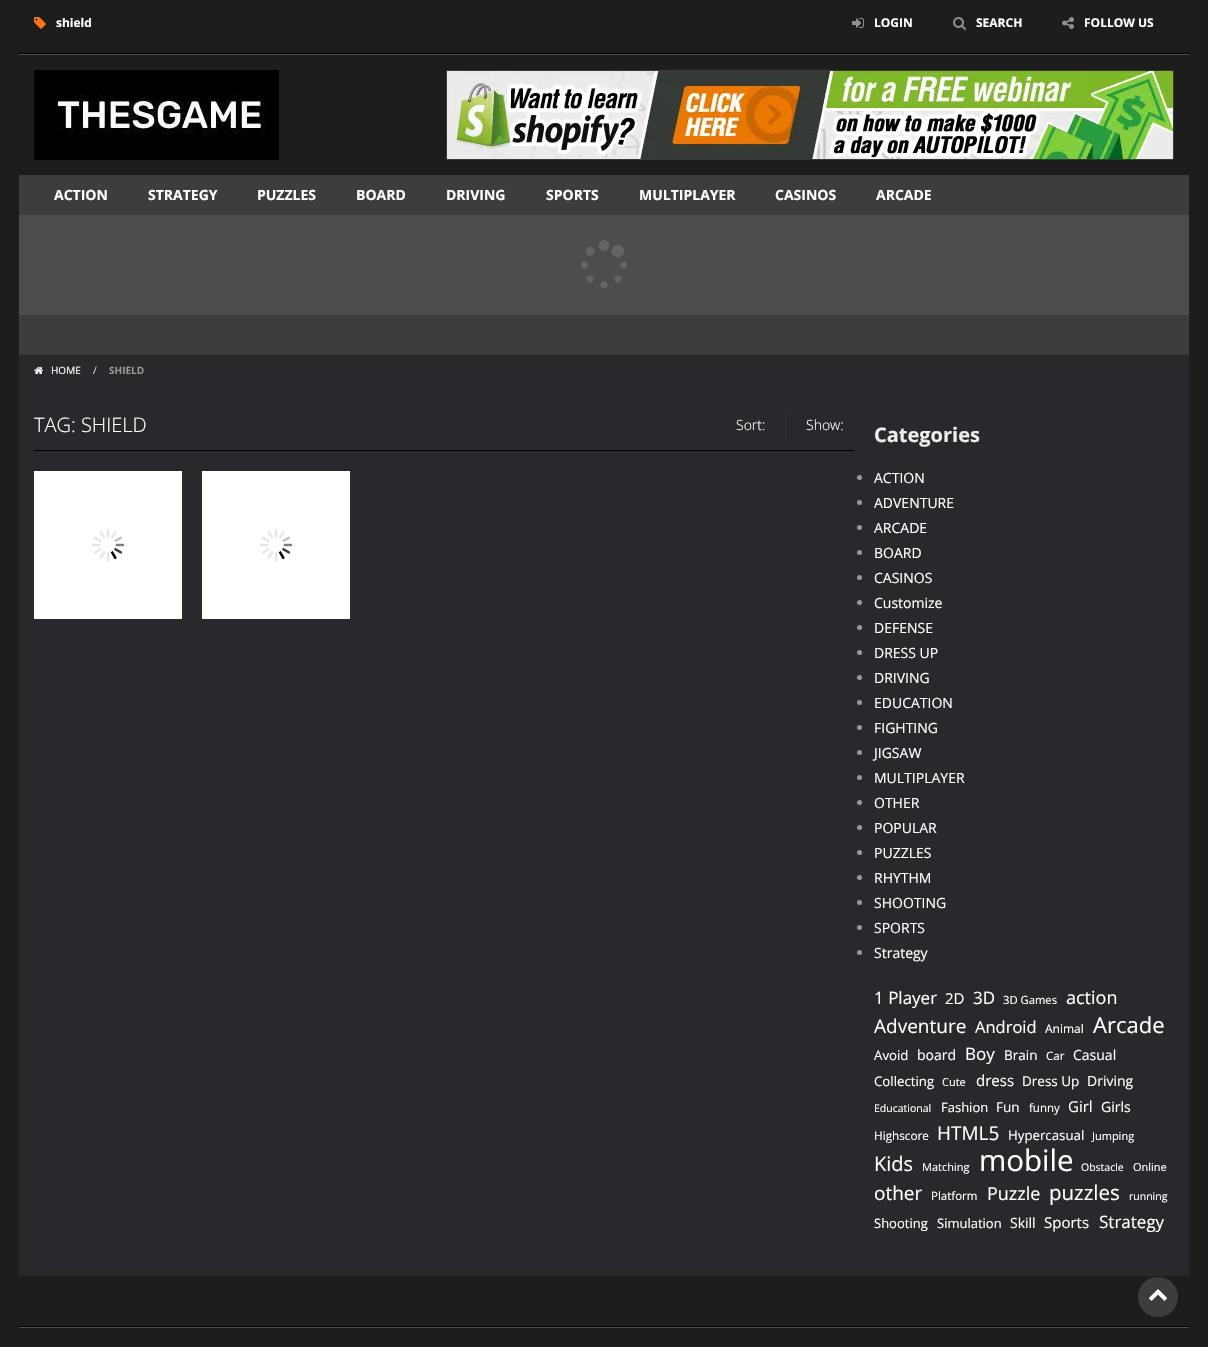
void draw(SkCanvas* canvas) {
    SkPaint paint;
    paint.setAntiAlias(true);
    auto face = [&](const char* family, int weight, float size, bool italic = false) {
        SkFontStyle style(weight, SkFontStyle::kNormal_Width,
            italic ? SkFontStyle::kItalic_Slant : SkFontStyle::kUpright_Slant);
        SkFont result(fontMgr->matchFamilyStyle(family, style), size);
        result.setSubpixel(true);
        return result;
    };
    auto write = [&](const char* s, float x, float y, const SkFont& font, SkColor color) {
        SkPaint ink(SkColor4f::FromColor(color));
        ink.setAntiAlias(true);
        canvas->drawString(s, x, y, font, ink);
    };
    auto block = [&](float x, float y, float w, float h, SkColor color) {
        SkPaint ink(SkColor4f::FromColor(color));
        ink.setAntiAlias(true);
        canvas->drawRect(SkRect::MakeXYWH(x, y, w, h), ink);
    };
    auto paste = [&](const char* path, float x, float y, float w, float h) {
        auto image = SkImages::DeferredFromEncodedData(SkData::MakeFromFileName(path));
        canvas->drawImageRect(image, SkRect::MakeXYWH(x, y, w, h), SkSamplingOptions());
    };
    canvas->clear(SkColorSetRGB(29, 29, 29));
    block(19, 53, 1170, 1, SK_ColorBLACK);
    paste("pic1.png", 34, 17, 12, 12);
    auto kFont1 = face("Open Sans", 700, 12);
    write("shield", 56, 27, kFont1, SK_ColorWHITE);
    paste("pic2.png", 852, 18, 12, 10);
    write("LOGIN", 874, 27, kFont1, SK_ColorWHITE);
    paste("pic3.png", 953, 17, 13, 13);
    write("SEARCH", 976, 27, kFont1, SK_ColorWHITE);
    paste("pic4.png", 1062, 17, 12, 12);
    write("FOLLOW US", 1084, 27, kFont1, SK_ColorWHITE);
    block(19, 54, 1170, 1, SkColorSetRGB(77, 77, 77));
    paste("pic5.png", 34, 70, 245, 90);
    paste("pic6.png", 446, 70, 728, 90);
    block(19, 175, 1170, 40, SkColorSetRGB(61, 61, 61));
    auto kFont2 = face("Open Sans", 700, 14);
    write("ACTION", 54, 200, kFont2, SK_ColorWHITE);
    write("STRATEGY", 148, 200, kFont2, SK_ColorWHITE);
    write("PUZZLES", 257, 200, kFont2, SK_ColorWHITE);
    write("BOARD", 356, 200, kFont2, SK_ColorWHITE);
    write("DRIVING", 446, 200, kFont2, SK_ColorWHITE);
    write("SPORTS", 546, 200, kFont2, SK_ColorWHITE);
    write("MULTIPLAYER", 639, 200, kFont2, SK_ColorWHITE);
    write("CASINOS", 775, 200, kFont2, SK_ColorWHITE);
    write("ARCADE", 876, 200, kFont2, SK_ColorWHITE);
    block(19, 215, 1170, 100, SkColorSetRGB(77, 77, 77));
    paste("pic7.png", 581, 240, 46, 49);
    block(19, 315, 1170, 40, SkColorSetRGB(61, 61, 61));
    block(19, 355, 1170, 921, SkColorSetRGB(41, 41, 45));
    paste("pic8.png", 34, 366, 10, 8);
    auto kFont3 = face("Open Sans", 400, 10);
    write("HOME", 51, 374, kFont3, SK_ColorWHITE);
    write("/", 93, 374, kFont3, SkColorSetRGB(221, 221, 221));
    auto kFont4 = face("Open Sans", 700, 10);
    write("SHIELD", 109, 374, kFont4, SkColorSetRGB(153, 153, 153));
    block(34, 450, 820, 1, SK_ColorBLACK);
    auto kFont5 = face("Open Sans", 300, 20);
    write("TAG: SHIELD", 34, 432, kFont5, SK_ColorWHITE);
    block(785, 410, 1, 30, SkColorSetRGB(51, 51, 51));
    auto kFont6 = face("Open Sans", 300, 14);
    write("Sort:", 736, 430, kFont6, SK_ColorWHITE);
    write("Show:", 806, 430, kFont6, SK_ColorWHITE);
    block(34, 471, 148, 148, SK_ColorWHITE);
    paste("pic9.png", 92, 529, 32, 32);
    block(202, 471, 148, 148, SK_ColorWHITE);
    paste("pic9.png", 260, 529, 32, 32);
    auto kFont7 = face("Open Sans", 700, 20);
    write("Categories", 874, 442, kFont7, SkColorSetRGB(238, 238, 238));
    paint.setColor(SkColorSetRGB(153, 153, 153));
    canvas->drawCircle(859.5f, 477.5f, 2.5f, paint);
    auto kFont8 = face("Open Sans", 400, 14);
    write("ACTION", 874, 483, kFont8, SK_ColorWHITE);
    canvas->drawCircle(859.5f, 502.5f, 2.5f, paint);
    write("ADVENTURE", 874, 508, kFont8, SK_ColorWHITE);
    canvas->drawCircle(859.5f, 527.5f, 2.5f, paint);
    write("ARCADE", 874, 533, kFont8, SK_ColorWHITE);
    canvas->drawCircle(859.5f, 552.5f, 2.5f, paint);
    write("BOARD", 874, 558, kFont8, SK_ColorWHITE);
    canvas->drawCircle(859.5f, 577.5f, 2.5f, paint);
    write("CASINOS", 874, 583, kFont8, SK_ColorWHITE);
    canvas->drawCircle(859.5f, 602.5f, 2.5f, paint);
    write("Customize", 874, 608, kFont8, SK_ColorWHITE);
    canvas->drawCircle(859.5f, 627.5f, 2.5f, paint);
    write("DEFENSE", 874, 633, kFont8, SK_ColorWHITE);
    canvas->drawCircle(859.5f, 652.5f, 2.5f, paint);
    write("DRESS UP", 874, 658, kFont8, SK_ColorWHITE);
    canvas->drawCircle(859.5f, 677.5f, 2.5f, paint);
    write("DRIVING", 874, 683, kFont8, SK_ColorWHITE);
    canvas->drawCircle(859.5f, 702.5f, 2.5f, paint);
    write("EDUCATION", 874, 708, kFont8, SK_ColorWHITE);
    canvas->drawCircle(859.5f, 727.5f, 2.5f, paint);
    write("FIGHTING", 874, 733, kFont8, SK_ColorWHITE);
    canvas->drawCircle(859.5f, 752.5f, 2.5f, paint);
    write("JIGSAW", 874, 758, kFont8, SK_ColorWHITE);
    canvas->drawCircle(859.5f, 777.5f, 2.5f, paint);
    write("MULTIPLAYER", 874, 783, kFont8, SK_ColorWHITE);
    canvas->drawCircle(859.5f, 802.5f, 2.5f, paint);
    write("OTHER", 874, 808, kFont8, SK_ColorWHITE);
    canvas->drawCircle(859.5f, 827.5f, 2.5f, paint);
    write("POPULAR", 874, 833, kFont8, SK_ColorWHITE);
    canvas->drawCircle(859.5f, 852.5f, 2.5f, paint);
    write("PUZZLES", 874, 858, kFont8, SK_ColorWHITE);
    canvas->drawCircle(859.5f, 877.5f, 2.5f, paint);
    write("RHYTHM", 874, 883, kFont8, SK_ColorWHITE);
    canvas->drawCircle(859.5f, 902.5f, 2.5f, paint);
    write("SHOOTING", 874, 908, kFont8, SK_ColorWHITE);
    canvas->drawCircle(859.5f, 927.5f, 2.5f, paint);
    write("SPORTS", 874, 933, kFont8, SK_ColorWHITE);
    canvas->drawCircle(859.5f, 952.5f, 2.5f, paint);
    write("Strategy", 874, 958, kFont8, SK_ColorWHITE);
    auto kFont9 = face("Open Sans", 400, 17);
    write("1 Player", 874, 1004, kFont9, SK_ColorWHITE);
    auto kFont10 = face("Open Sans", 400, 15);
    write("2D", 945, 1004, kFont10, SK_ColorWHITE);
    write("3D", 973, 1004, kFont9, SK_ColorWHITE);
    auto kFont11 = face("Open Sans", 400, 11.25f);
    write("3D Games", 1003, 1004, kFont11, SK_ColorWHITE);
    auto kFont12 = face("Open Sans", 400, 18);
    write("action", 1066, 1004, kFont12, SK_ColorWHITE);
    auto kFont13 = face("Open Sans", 400, 19);
    write("Adventure", 874, 1033, kFont13, SK_ColorWHITE);
    auto kFont14 = face("Open Sans", 400, 16.5f);
    write("Android", 975, 1033, kFont14, SK_ColorWHITE);
    auto kFont15 = face("Open Sans", 400, 12);
    write("Animal", 1045, 1033, kFont15, SK_ColorWHITE);
    auto kFont16 = face("Open Sans", 400, 22);
    write("Arcade", 1093, 1033, kFont16, SK_ColorWHITE);
    auto kFont17 = face("Open Sans", 400, 13.25f);
    write("Avoid", 874, 1060, kFont17, SK_ColorWHITE);
    write("board", 917, 1060, kFont8, SK_ColorWHITE);
    write("Boy", 965, 1060, kFont9, SK_ColorWHITE);
    auto kFont18 = face("Open Sans", 400, 13.5f);
    write("Brain", 1004, 1060, kFont18, SK_ColorWHITE);
    auto kFont19 = face("Open Sans", 400, 11.5f);
    write("Car", 1046, 1060, kFont19, SK_ColorWHITE);
    write("Casual", 1073, 1060, kFont8, SK_ColorWHITE);
    write("Collecting", 874, 1086, kFont17, SK_ColorWHITE);
    auto kFont20 = face("Open Sans", 400, 11);
    write("Cute", 942, 1086, kFont20, SK_ColorWHITE);
    write("dress", 976, 1086, kFont10, SK_ColorWHITE);
    write("Dress Up", 1022, 1086, kFont18, SK_ColorWHITE);
    write("Driving", 1087, 1086, kFont8, SK_ColorWHITE);
    auto kFont21 = face("Open Sans", 400, 10.5f);
    write("Educational", 874, 1112, kFont21, SK_ColorWHITE);
    auto kFont22 = face("Open Sans", 400, 13);
    write("Fashion", 941, 1112, kFont22, SK_ColorWHITE);
    write("Fun", 996, 1112, kFont18, SK_ColorWHITE);
    write("funny", 1029, 1112, kFont19, SK_ColorWHITE);
    write("Girl", 1068, 1112, kFont10, SK_ColorWHITE);
    write("Girls", 1101, 1112, kFont8, SK_ColorWHITE);
    auto kFont23 = face("Open Sans", 400, 11.75f);
    write("Highscore", 874, 1140, kFont23, SK_ColorWHITE);
    write("HTML5", 937, 1140, kFont13, SK_ColorWHITE);
    write("Hypercasual", 1008, 1140, kFont17, SK_ColorWHITE);
    write("Jumping", 1092, 1140, kFont20, SK_ColorWHITE);
    auto kFont24 = face("Open Sans", 400, 20);
    write("Kids", 874, 1171, kFont24, SK_ColorWHITE);
    write("Matching", 922, 1171, kFont20, SK_ColorWHITE);
    auto kFont25 = face("Open Sans", 400, 29.5f);
    write("mobile", 979, 1171, kFont25, SK_ColorWHITE);
    write("Obstacle", 1081, 1171, kFont21, SK_ColorWHITE);
    write("Online", 1133, 1171, kFont20, SK_ColorWHITE);
    write("other", 874, 1200, kFont13, SK_ColorWHITE);
    write("Platform", 931, 1200, kFont19, SK_ColorWHITE);
    write("Puzzle", 987, 1200, kFont12, SK_ColorWHITE);
    auto kFont26 = face("Open Sans", 400, 20.5f);
    write("puzzles", 1049, 1200, kFont26, SK_ColorWHITE);
    write("running", 1129, 1200, kFont21, SK_ColorWHITE);
    write("Shooting", 874, 1228, kFont22, SK_ColorWHITE);
    write("Simulation", 937, 1228, kFont22, SK_ColorWHITE);
    write("Skill", 1010, 1228, kFont8, SK_ColorWHITE);
    write("Sports", 1044, 1228, kFont10, SK_ColorWHITE);
    write("Strategy", 1099, 1228, kFont9, SK_ColorWHITE);
    block(19, 1326, 1170, 1, SK_ColorBLACK);
    block(19, 1327, 1170, 1, SkColorSetRGB(77, 77, 77));
    paint.setColor(SkColorSetRGB(61, 61, 61));
    canvas->drawCircle(1158, 1297, 20, paint);
    paste("pic10.png", 1149, 1289, 18, 12);
}
